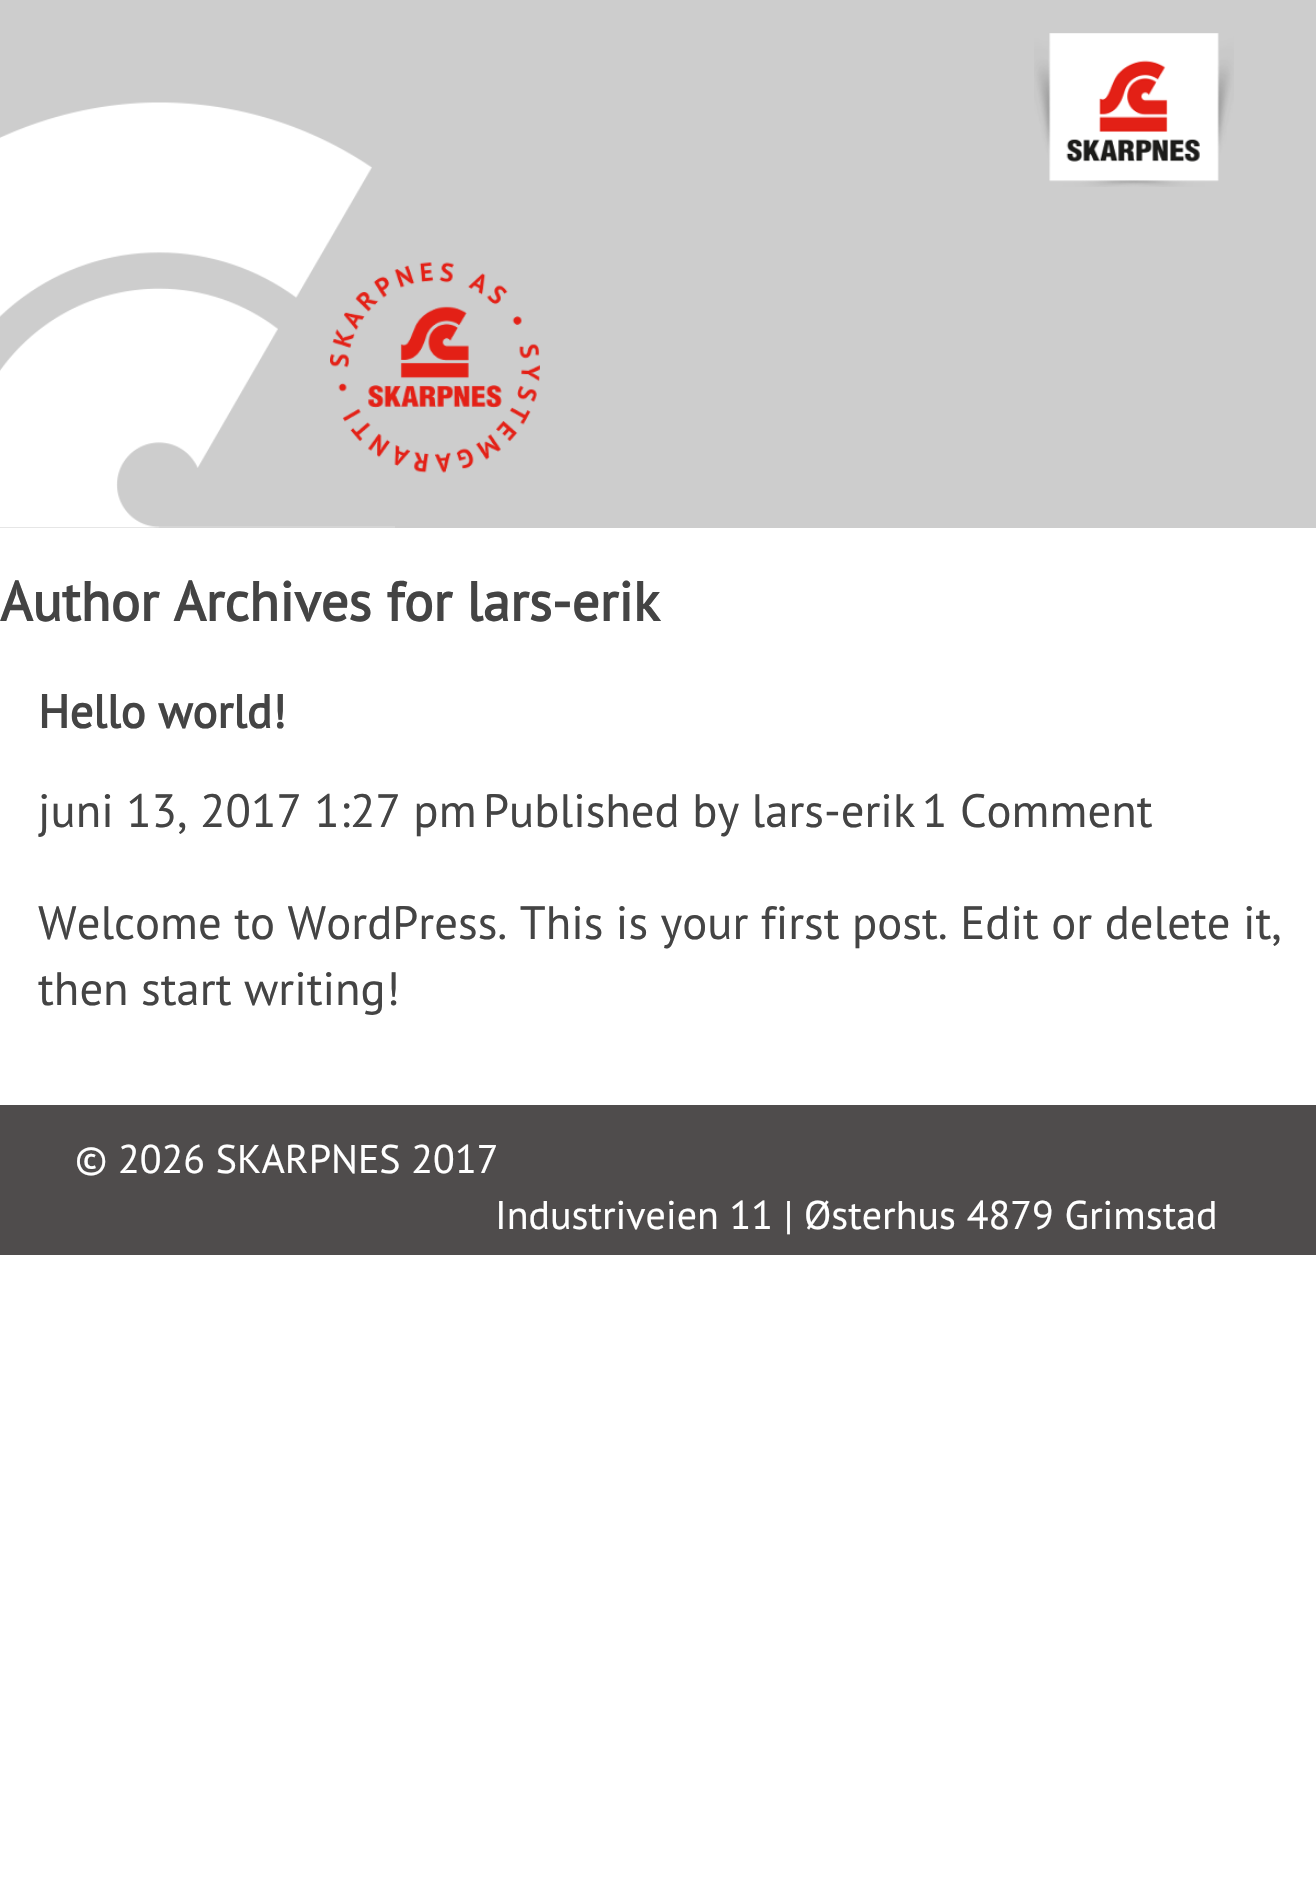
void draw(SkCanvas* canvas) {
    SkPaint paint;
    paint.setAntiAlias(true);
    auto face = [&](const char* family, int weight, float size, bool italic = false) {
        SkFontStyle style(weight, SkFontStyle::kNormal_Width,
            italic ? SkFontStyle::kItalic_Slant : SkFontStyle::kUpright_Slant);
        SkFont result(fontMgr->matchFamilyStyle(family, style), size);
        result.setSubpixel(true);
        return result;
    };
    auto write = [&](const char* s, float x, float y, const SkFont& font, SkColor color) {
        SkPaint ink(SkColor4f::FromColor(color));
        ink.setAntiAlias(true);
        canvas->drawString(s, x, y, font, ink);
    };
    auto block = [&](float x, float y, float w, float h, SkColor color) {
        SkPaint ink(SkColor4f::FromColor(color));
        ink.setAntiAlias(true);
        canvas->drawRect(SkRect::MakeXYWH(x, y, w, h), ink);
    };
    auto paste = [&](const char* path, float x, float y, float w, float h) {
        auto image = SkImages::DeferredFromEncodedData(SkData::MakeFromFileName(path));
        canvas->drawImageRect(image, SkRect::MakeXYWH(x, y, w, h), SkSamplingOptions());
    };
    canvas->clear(SK_ColorWHITE);
    block(0, 0, 1316, 528, SkColorSetRGB(205, 205, 205));
    paste("pic2.png", 330, 262, 210, 211);
    paste("pic1.png", 0, 102, 395, 426);
    paste("pic3.png", 1034, 33, 200, 154);
    auto kFont1 = face("PT Sans", 700, 55);
    write("Author Archives for lars-erik", 0, 621, kFont1, SkColorSetRGB(68, 68, 68));
    auto kFont2 = face("PT Sans", 700, 46.7f);
    write("Hello world!", 38, 728, kFont2, SkColorSetRGB(68, 68, 68));
    auto kFont3 = face("PT Sans", 400, 46.7f);
    write("juni 13, 2017 1:27 pm", 38, 827, kFont3, SkColorSetRGB(68, 68, 68));
    write("Published by lars-erik", 483, 827, kFont3, SkColorSetRGB(68, 68, 68));
    write("1 Comment", 922, 827, kFont3, SkColorSetRGB(68, 68, 68));
    write("Welcome to WordPress. This is your first post. Edit or delete it,", 38, 939, kFont3, SkColorSetRGB(68, 68, 68));
    write("then start writing!", 38, 1005, kFont3, SkColorSetRGB(68, 68, 68));
    block(0, 1105, 1316, 150, SkColorSetRGB(79, 76, 76));
    auto kFont4 = face("PT Sans", 400, 40);
    write("© 2026 SKARPNES 2017", 75, 1173, kFont4, SK_ColorWHITE);
    write("Industriveien 11 | Østerhus 4879 Grimstad", 495, 1229, kFont4, SK_ColorWHITE);
}
